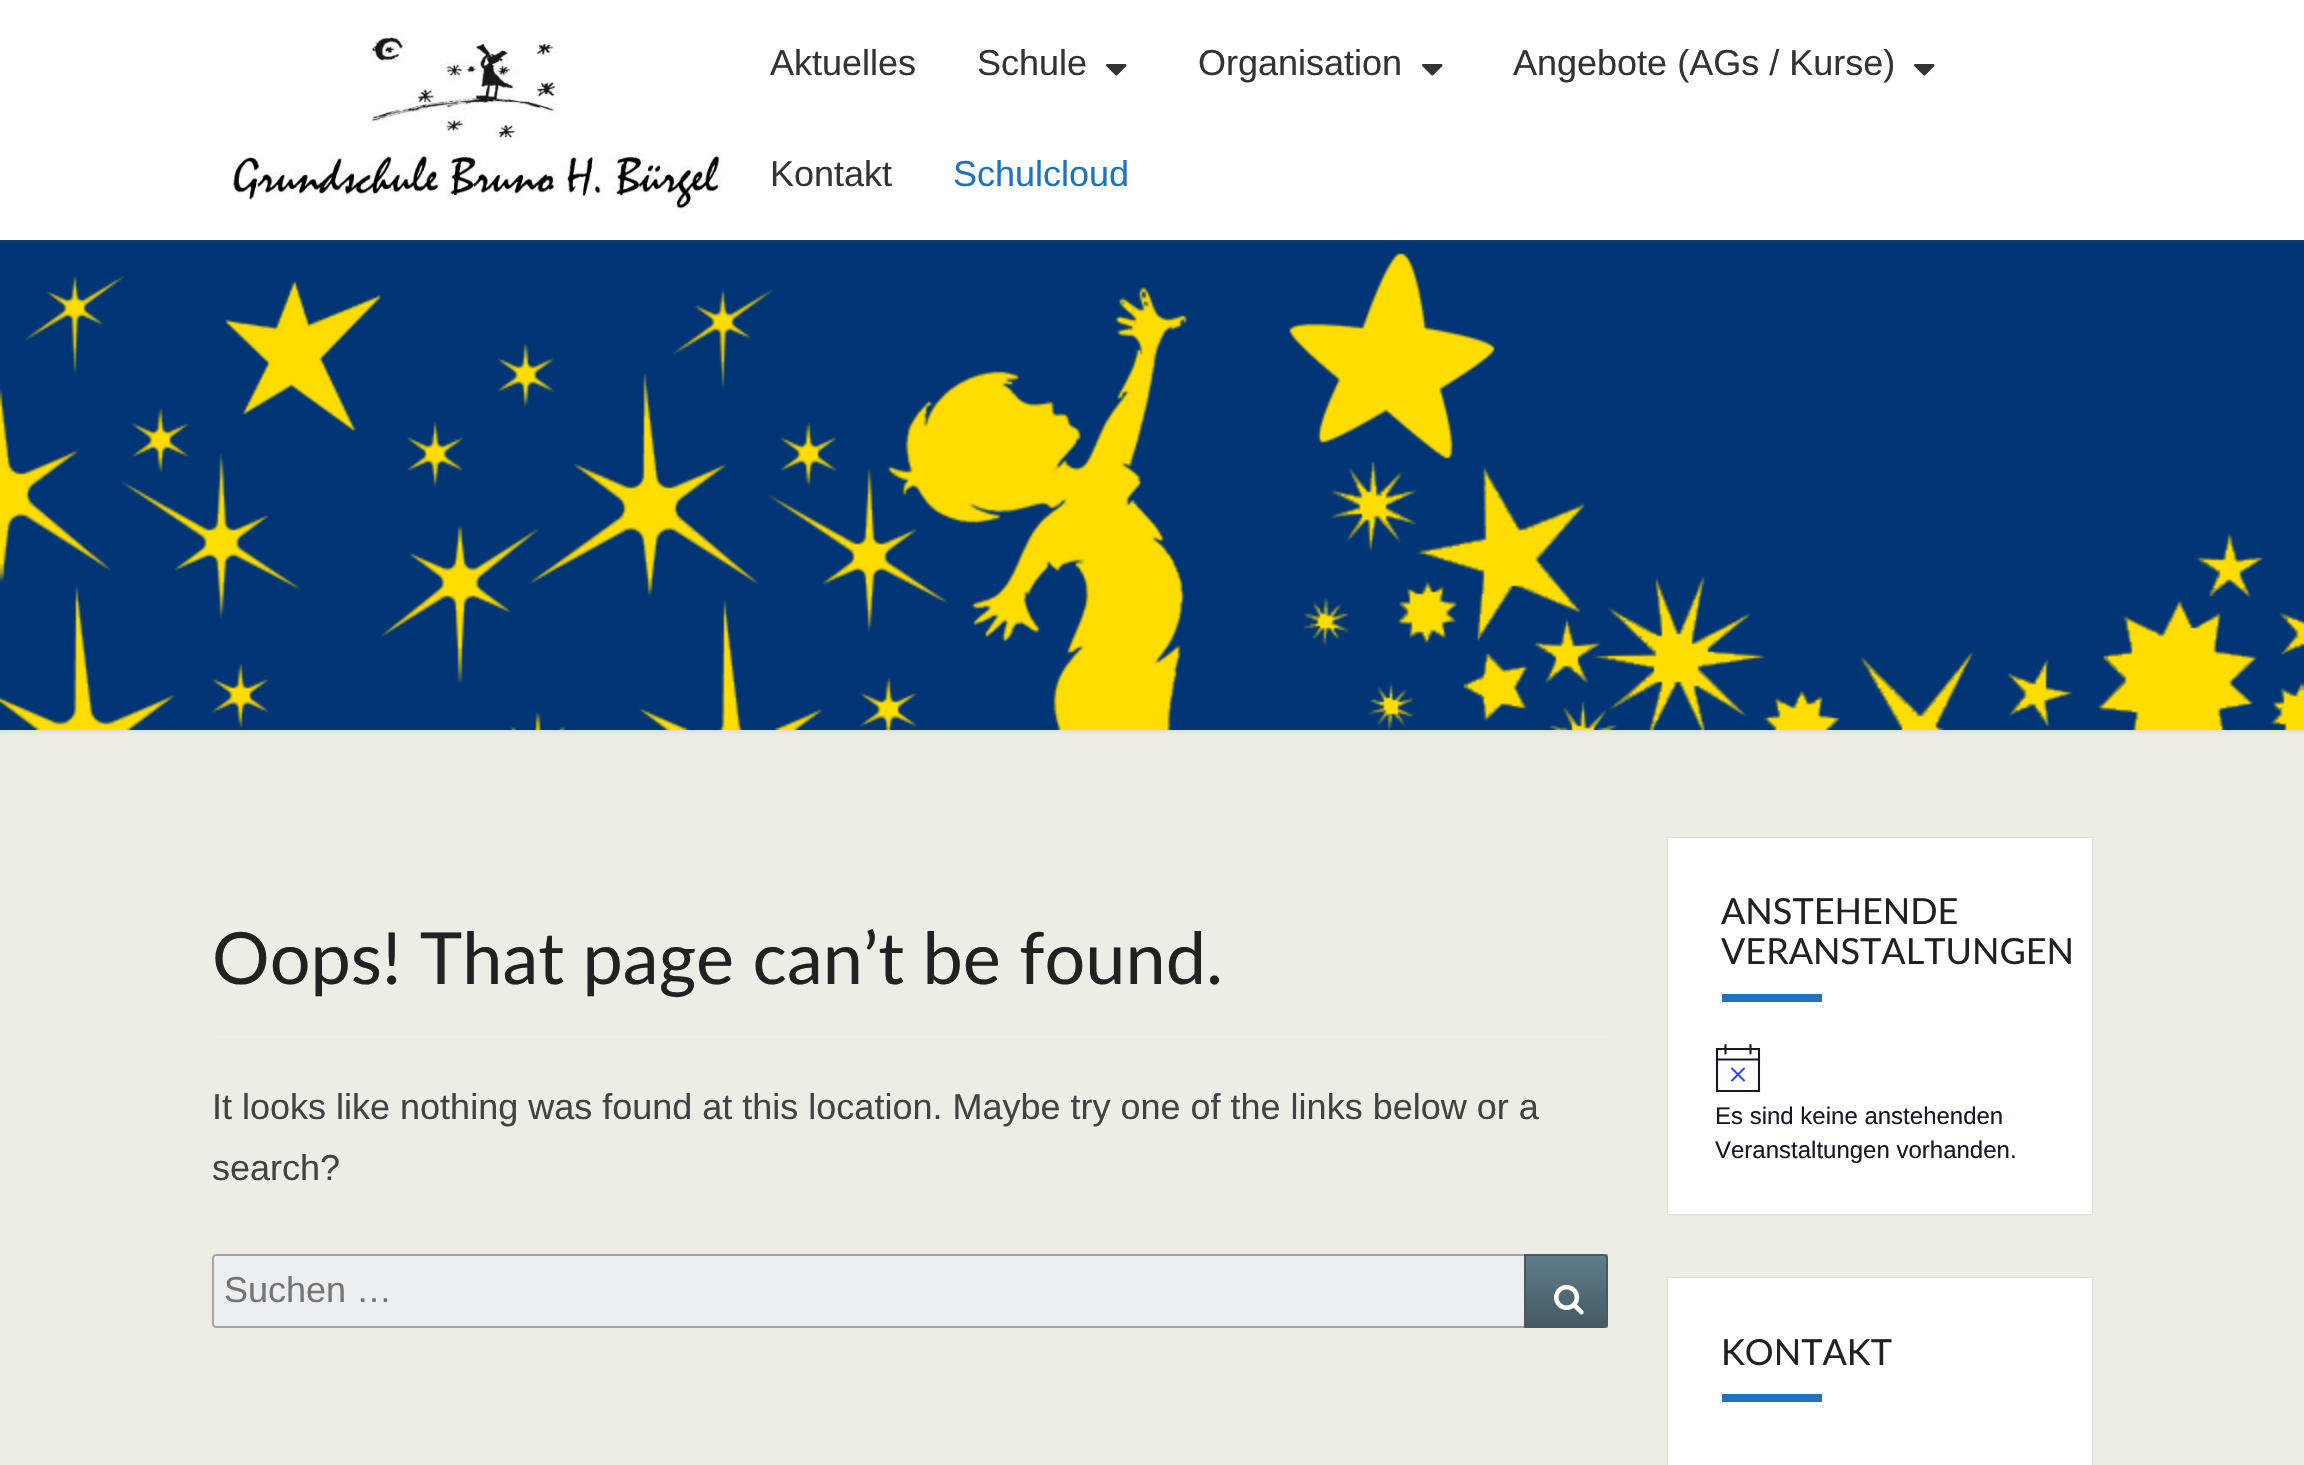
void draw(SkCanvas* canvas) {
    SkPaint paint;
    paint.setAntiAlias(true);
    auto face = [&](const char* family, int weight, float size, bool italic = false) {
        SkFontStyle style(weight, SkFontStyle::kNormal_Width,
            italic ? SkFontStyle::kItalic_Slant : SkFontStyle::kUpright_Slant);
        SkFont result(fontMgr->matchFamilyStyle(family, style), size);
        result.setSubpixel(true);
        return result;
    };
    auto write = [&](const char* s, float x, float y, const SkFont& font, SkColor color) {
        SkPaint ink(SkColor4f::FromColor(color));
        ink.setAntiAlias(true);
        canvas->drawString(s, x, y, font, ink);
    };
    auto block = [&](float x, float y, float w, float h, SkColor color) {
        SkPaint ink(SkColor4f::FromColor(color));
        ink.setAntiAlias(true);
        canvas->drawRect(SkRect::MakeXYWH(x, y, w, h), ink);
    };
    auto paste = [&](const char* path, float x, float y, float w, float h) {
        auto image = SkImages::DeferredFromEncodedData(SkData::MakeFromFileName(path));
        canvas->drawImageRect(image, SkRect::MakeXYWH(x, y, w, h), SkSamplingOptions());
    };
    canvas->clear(SkColorSetRGB(237, 237, 230));
    paint.setColor(SkColorSetARGB(77, 182, 182, 182));
    paint.setMaskFilter(SkMaskFilter::MakeBlur(kNormal_SkBlurStyle, 2));
    canvas->drawRect(SkRect::MakeXYWH(-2, 238, 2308, 494), paint);
    paint.setMaskFilter(nullptr);
    paste("pic3.png", 0, 240, 2304, 490);
    paint.setColor(SkColorSetARGB(51, 100, 100, 100));
    paint.setMaskFilter(SkMaskFilter::MakeBlur(kNormal_SkBlurStyle, 1));
    canvas->drawRect(SkRect::MakeXYWH(0, 2, 2304, 240), paint);
    paint.setMaskFilter(nullptr);
    block(0, 0, 2304, 240, SK_ColorWHITE);
    paste("pic1.png", 233, 34, 489, 179);
    auto kFont1 = face("Liberation Sans", 400, 36);
    write("Aktuelles", 770, 75, kFont1, SkColorSetRGB(51, 51, 51));
    write("Schule", 977, 75, kFont1, SkColorSetRGB(51, 51, 51));
    paste("pic2.png", 1106, 64, 21, 12);
    write("Organisation", 1198, 75, kFont1, SkColorSetRGB(51, 51, 51));
    paste("pic2.png", 1422, 64, 21, 12);
    write("Angebote (AGs / Kurse)", 1513, 75, kFont1, SkColorSetRGB(51, 51, 51));
    paste("pic2.png", 1914, 64, 21, 12);
    write("Kontakt", 770, 186, kFont1, SkColorSetRGB(51, 51, 51));
    write("Schulcloud", 953, 186, kFont1, SkColorSetRGB(30, 115, 190));
    block(212, 1036, 1396, 2, SkColorSetRGB(238, 238, 238));
    auto kFont2 = face("Lato", 400, 72);
    write("Oops! That page can’t be found.", 212, 984, kFont2, SkColorSetRGB(33, 33, 33));
    write("It looks like nothing was found at this location. Maybe try one of the links below or a", 212, 1119, kFont1, SkColorSetRGB(66, 66, 66));
    write("search?", 212, 1180, kFont1, SkColorSetRGB(66, 66, 66));
    paint.setColor(SkColorSetRGB(236, 239, 241));
    canvas->drawPath(SkPathBuilder().moveTo(216, 1255).lineTo(1607, 1255).lineTo(1607, 1327).lineTo(216, 1327).cubicTo(214.5f, 1327, 213, 1325.5f, 213, 1324).lineTo(213, 1258).cubicTo(213, 1256.5f, 214.5f, 1255, 216, 1255).close().detach(), paint);
    paint.setStyle(SkPaint::kStroke_Style);
    paint.setStrokeWidth(2);
    paint.setColor(SkColorSetRGB(170, 161, 168));
    canvas->drawPath(SkPathBuilder().moveTo(216, 1255).lineTo(1607, 1255).lineTo(1607, 1327).lineTo(216, 1327).cubicTo(214.5f, 1327, 213, 1325.5f, 213, 1324).lineTo(213, 1258).cubicTo(213, 1256.5f, 214.5f, 1255, 216, 1255).close().detach(), paint);
    write("Suchen …", 224, 1302, kFont1, SkColorSetRGB(117, 117, 117));
    paint.setStyle(SkPaint::kFill_Style);
    {
        const SkColor colors[] = {SkColorSetRGB(96, 125, 139), SkColorSetRGB(69, 90, 100)};
        const float stops[] = {0, 1};
        const SkPoint ends[] = {{1566, 1256}, {1566, 1326}};
        paint.setShader(SkGradientShader::MakeLinear(ends, colors, stops, 2, SkTileMode::kClamp));
        paint.setAlpha(255);
    }
    canvas->drawRect(SkRect::MakeXYWH(1526, 1256, 82, 70), paint);
    paint.setStyle(SkPaint::kStroke_Style);
    paint.setShader(nullptr);
    paint.setColor(SkColorSetRGB(69, 90, 100));
    canvas->drawPath(SkPathBuilder().moveTo(1525, 1255).lineTo(1604, 1255).cubicTo(1605.5f, 1255, 1607, 1256.5f, 1607, 1258).lineTo(1607, 1324).cubicTo(1607, 1325.5f, 1605.5f, 1327, 1604, 1327).lineTo(1525, 1327).close().detach(), paint);
    paste("pic4.png", 1554, 1284, 30, 31);
    paint.setStyle(SkPaint::kFill_Style);
    paint.setColor(SkColorSetARGB(38, 0, 0, 0));
    paint.setMaskFilter(SkMaskFilter::MakeBlur(kNormal_SkBlurStyle, 1));
    canvas->drawRect(SkRect::MakeXYWH(1668, 838, 424, 376), paint);
    paint.setMaskFilter(nullptr);
    block(1668, 838, 424, 376, SK_ColorWHITE);
    auto kFont3 = face("Lato", 400, 36);
    write("ANSTEHENDE", 1721, 924, kFont3, SkColorSetRGB(33, 33, 33));
    write("VERANSTALTUNGEN", 1721, 964, kFont3, SkColorSetRGB(33, 33, 33));
    block(1722, 994, 100, 8, SkColorSetRGB(30, 115, 190));
    paint.setStyle(SkPaint::kStroke_Style);
    paint.setStrokeWidth(2.1f);
    paint.setColor(SkColorSetRGB(20, 24, 39));
    canvas->drawPath(SkPathBuilder().moveTo(1717, 1049).lineTo(1759, 1049).lineTo(1759, 1091).lineTo(1717, 1091).close().detach(), paint);
    paint.setStrokeCap(SkPaint::kRound_Cap);
    canvas->drawPath(SkPathBuilder().moveTo(1725.5f, 1045).lineTo(1725.5f, 1053.5f).moveTo(1750.5f, 1045).lineTo(1750.5f, 1053.5f).detach(), paint);
    paint.setStrokeCap(SkPaint::kSquare_Cap);
    canvas->drawPath(SkPathBuilder().moveTo(1717, 1059.5f).lineTo(1759, 1059.5f).detach(), paint);
    paint.setStrokeCap(SkPaint::kRound_Cap);
    paint.setColor(SkColorSetRGB(51, 74, 255));
    canvas->drawPath(SkPathBuilder().moveTo(1732, 1068.5f).lineTo(1744, 1080.5f).moveTo(1744, 1068.5f).lineTo(1732, 1080.5f).detach(), paint);
    auto kFont4 = face("Liberation Sans", 400, 24);
    write("Es sind keine anstehenden", 1715, 1124, kFont4, SkColorSetRGB(20, 24, 39));
    write("Veranstaltungen vorhanden.", 1715, 1158, kFont4, SkColorSetRGB(20, 24, 39));
    paint.setStyle(SkPaint::kFill_Style);
    paint.setColor(SkColorSetARGB(38, 0, 0, 0));
    paint.setMaskFilter(SkMaskFilter::MakeBlur(kNormal_SkBlurStyle, 1));
    canvas->drawRect(SkRect::MakeXYWH(1668, 1278, 424, 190), paint);
    paint.setMaskFilter(nullptr);
    block(1668, 1278, 424, 187, SK_ColorWHITE);
    write("KONTAKT", 1721, 1365, kFont3, SkColorSetRGB(33, 33, 33));
    block(1722, 1394, 100, 8, SkColorSetRGB(30, 115, 190));
}
